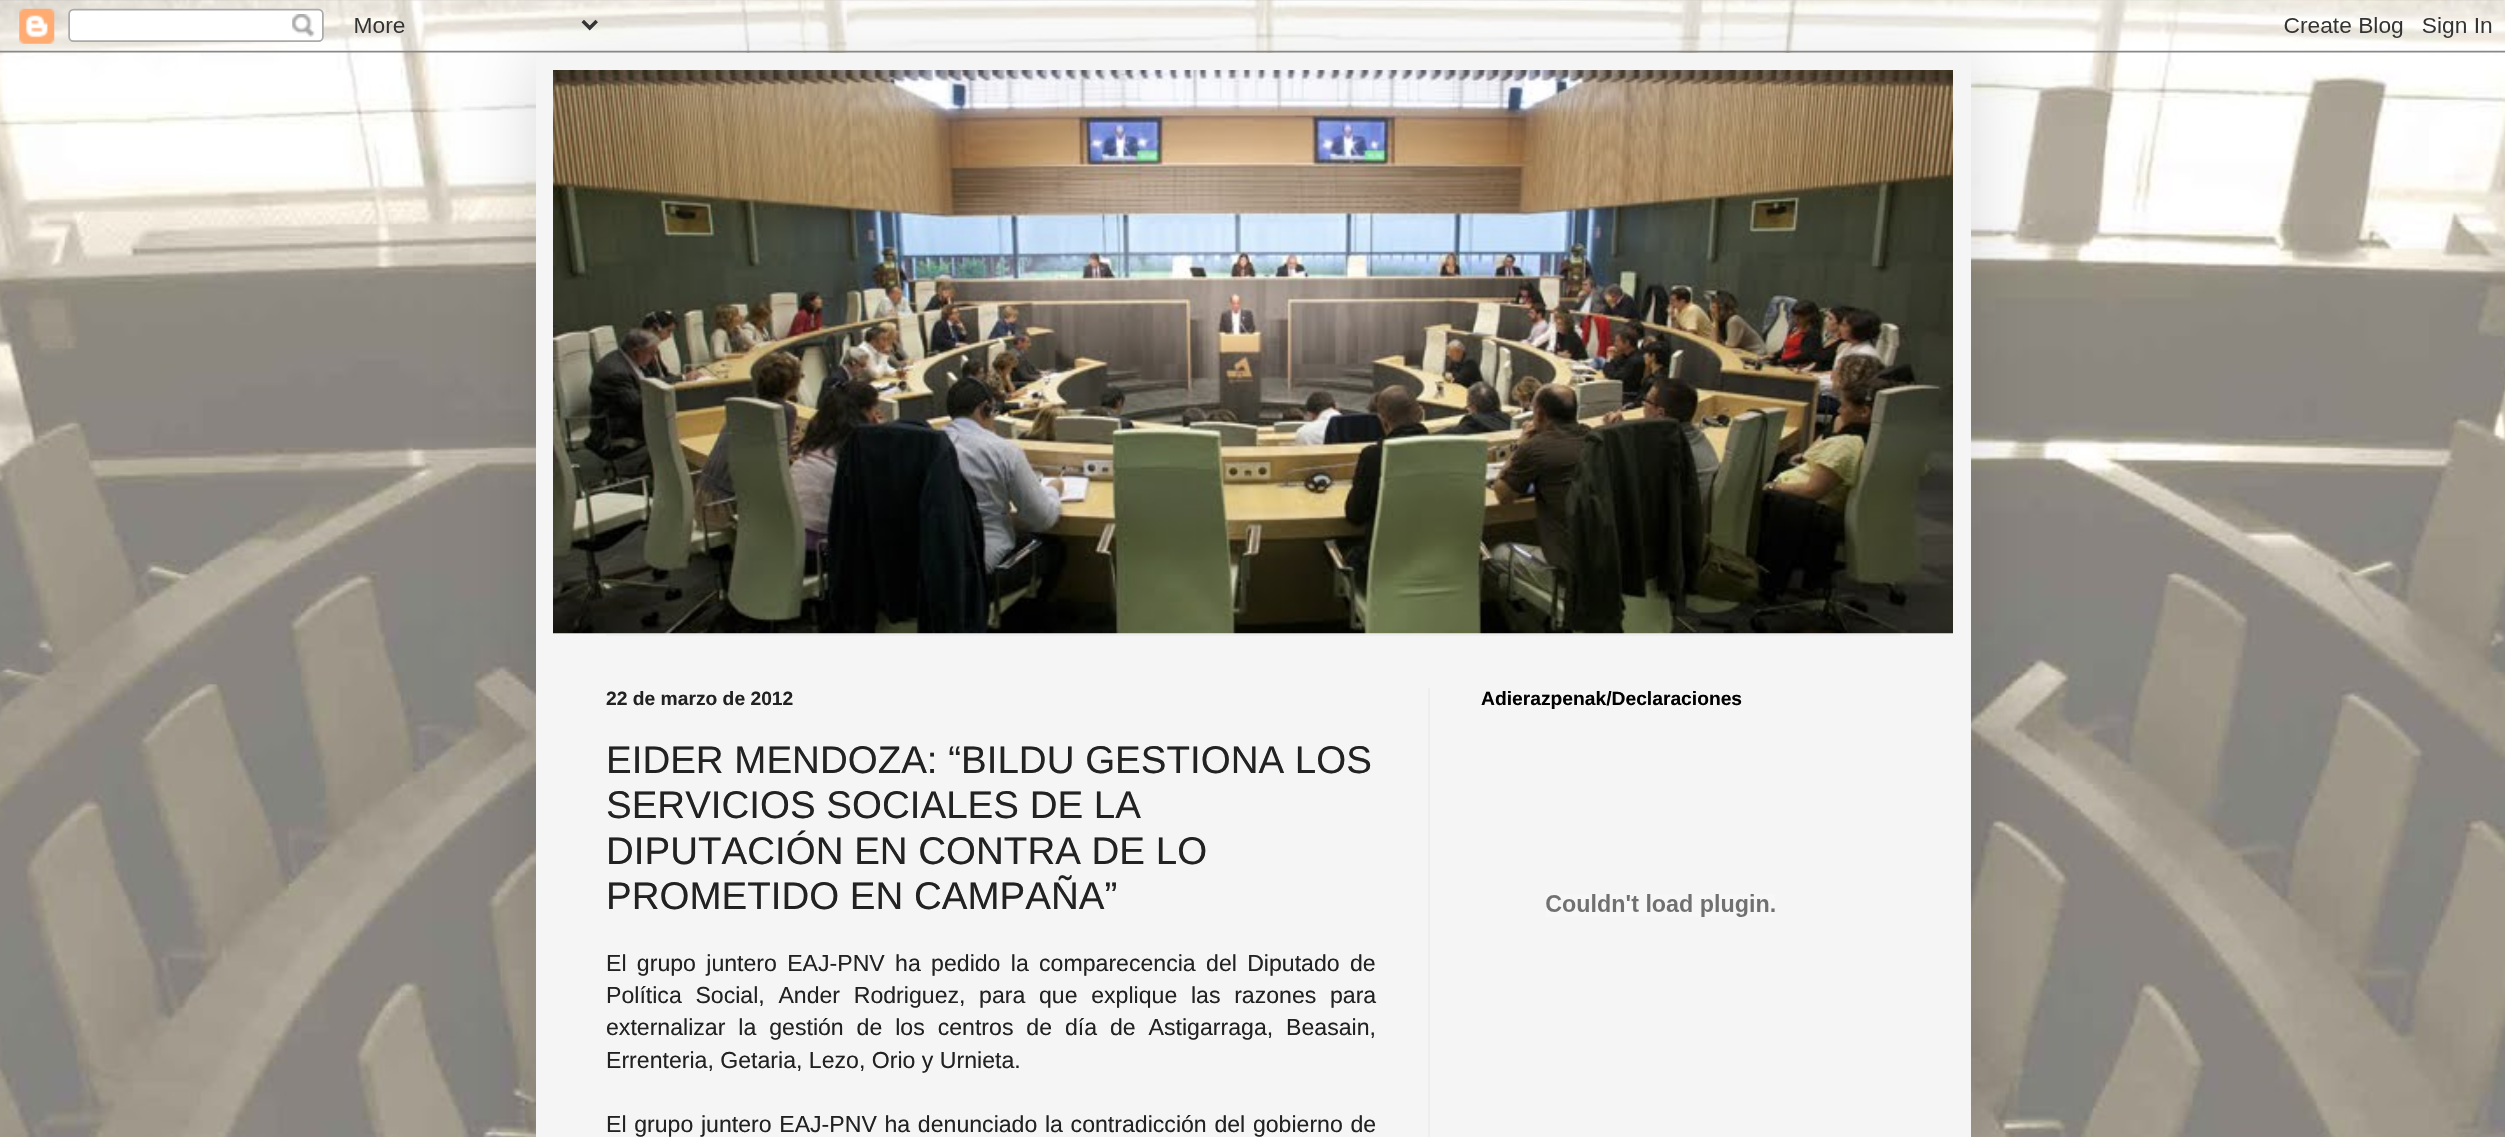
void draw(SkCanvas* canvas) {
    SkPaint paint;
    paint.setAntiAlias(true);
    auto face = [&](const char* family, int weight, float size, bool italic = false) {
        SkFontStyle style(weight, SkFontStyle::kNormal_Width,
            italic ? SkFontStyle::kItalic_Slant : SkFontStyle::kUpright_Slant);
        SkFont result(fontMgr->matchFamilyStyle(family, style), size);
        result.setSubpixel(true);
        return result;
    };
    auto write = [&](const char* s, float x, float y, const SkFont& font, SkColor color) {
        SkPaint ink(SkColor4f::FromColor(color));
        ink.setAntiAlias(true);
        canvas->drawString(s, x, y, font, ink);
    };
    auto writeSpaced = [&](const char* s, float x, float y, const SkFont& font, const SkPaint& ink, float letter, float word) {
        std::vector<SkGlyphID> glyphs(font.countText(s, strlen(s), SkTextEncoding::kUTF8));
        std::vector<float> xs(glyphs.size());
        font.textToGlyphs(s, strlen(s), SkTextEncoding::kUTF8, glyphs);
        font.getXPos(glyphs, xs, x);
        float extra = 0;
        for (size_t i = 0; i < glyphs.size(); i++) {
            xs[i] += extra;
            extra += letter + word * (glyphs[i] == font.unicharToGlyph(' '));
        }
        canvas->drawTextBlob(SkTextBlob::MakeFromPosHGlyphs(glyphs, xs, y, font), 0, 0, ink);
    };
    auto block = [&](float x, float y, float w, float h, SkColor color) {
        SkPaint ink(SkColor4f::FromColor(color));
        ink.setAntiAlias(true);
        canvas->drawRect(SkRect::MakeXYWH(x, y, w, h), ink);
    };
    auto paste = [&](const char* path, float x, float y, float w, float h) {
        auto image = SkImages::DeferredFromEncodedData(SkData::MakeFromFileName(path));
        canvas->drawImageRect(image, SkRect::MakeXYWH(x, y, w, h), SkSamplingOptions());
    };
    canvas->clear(SK_ColorWHITE);
    paste("pic1.png", 0, 0, 2505, 1137);
    paint.setColor(SkColorSetARGB(38, 0, 0, 0));
    paint.setMaskFilter(SkMaskFilter::MakeBlur(kNormal_SkBlurStyle, 35));
    canvas->drawRect(SkRect::MakeXYWH(536, 53, 1435, 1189), paint);
    paint.setMaskFilter(nullptr);
    paste("pic2.png", 0, 0, 2505, 53);
    block(536, 53, 1435, 1084, SkColorSetRGB(245, 245, 245));
    paste("pic3.png", 553, 70, 1400, 564);
    block(606, 634, 1295, 2, SkColorSetRGB(238, 238, 238));
    block(1428, 688, 2, 449, SkColorSetRGB(238, 238, 238));
    auto kFont1 = face("Liberation Sans", 700, 19.25f);
    write("22 de marzo de 2012", 606, 705, kFont1, SkColorSetRGB(34, 34, 34));
    auto kFont2 = face("Liberation Sans", 400, 38.5f);
    write("EIDER MENDOZA: “BILDU GESTIONA LOS", 606, 773, kFont2, SkColorSetRGB(34, 34, 34));
    write("SERVICIOS SOCIALES DE LA", 606, 818, kFont2, SkColorSetRGB(34, 34, 34));
    write("DIPUTACIÓN EN CONTRA DE LO", 606, 864, kFont2, SkColorSetRGB(34, 34, 34));
    write("PROMETIDO EN CAMPAÑA”", 606, 909, kFont2, SkColorSetRGB(34, 34, 34));
    auto kFont3 = face("Liberation Sans", 400, 23.1f);
    paint.setColor(SkColorSetRGB(34, 34, 34));
    writeSpaced("El grupo juntero EAJ-PNV ha pedido la comparecencia del Diputado de", 606, 971, kFont3, paint, 0, 3.9f);
    writeSpaced("Política Social, Ander Rodriguez, para que explique las razones para", 606, 1003, kFont3, paint, 0, 7.25f);
    writeSpaced("externalizar la gestión de los centros de día de Astigarraga, Beasain,", 606, 1035, kFont3, paint, 0, 6.5f);
    write("Errenteria, Getaria, Lezo, Orio y Urnieta.", 606, 1068, kFont3, SkColorSetRGB(34, 34, 34));
    writeSpaced("El grupo juntero EAJ-PNV ha denunciado la contradicción del gobierno de", 606, 1132, kFont3, paint, 0, 1.25f);
    write("Adierazpenak/Declaraciones", 1481, 705, kFont1, SK_ColorBLACK);
    paste("pic4.png", 1546, 894, 229, 23);
}
